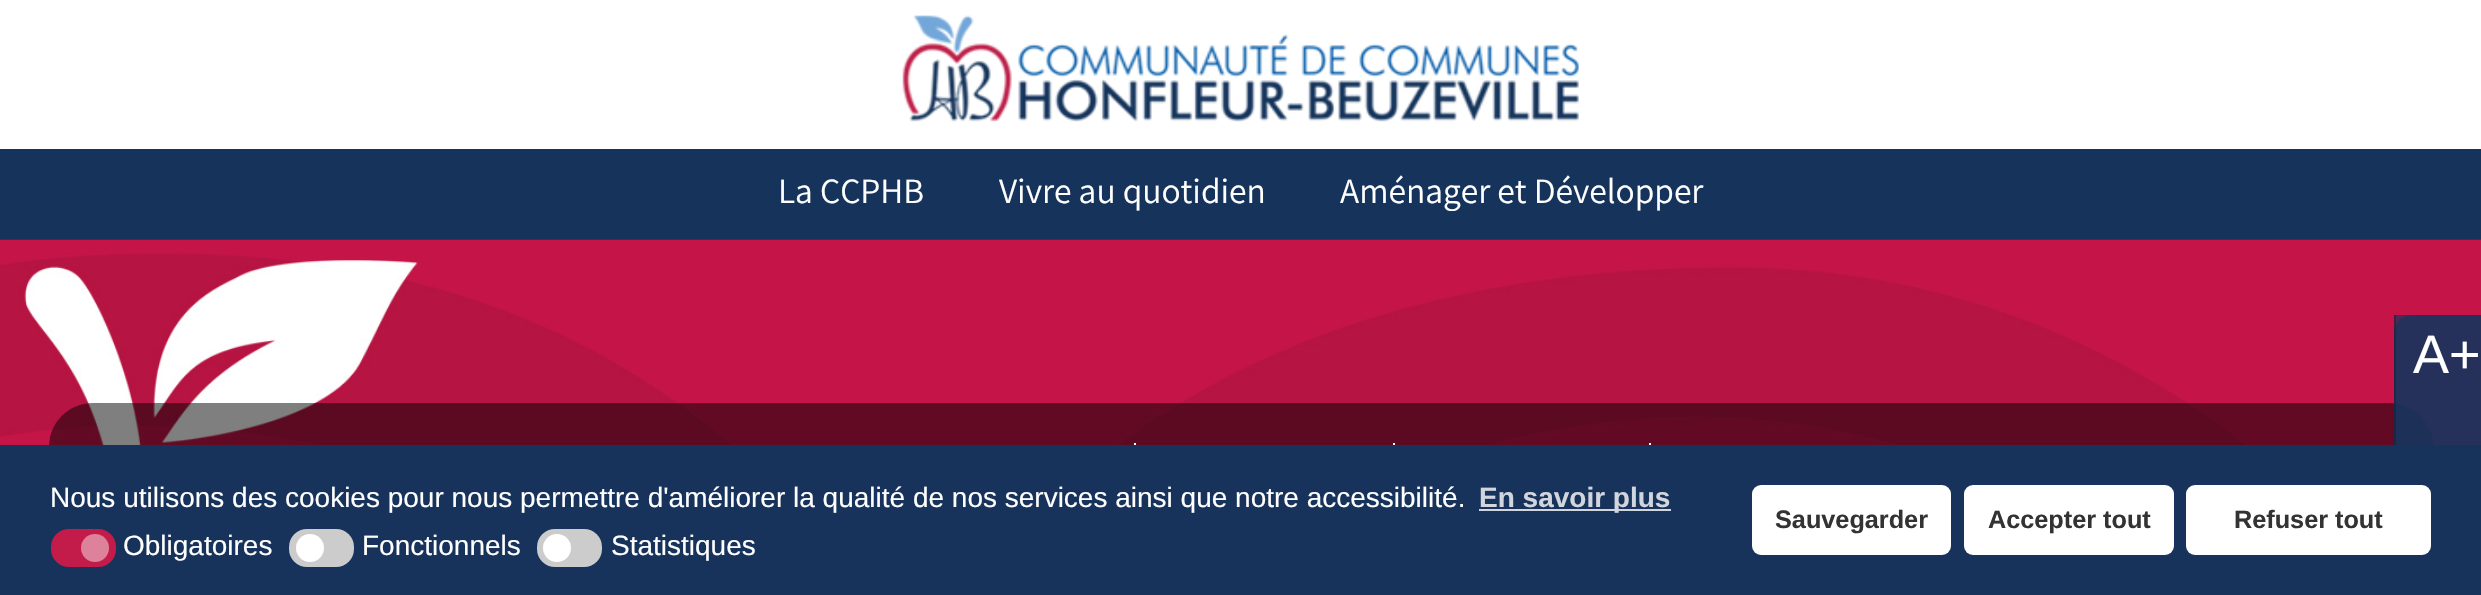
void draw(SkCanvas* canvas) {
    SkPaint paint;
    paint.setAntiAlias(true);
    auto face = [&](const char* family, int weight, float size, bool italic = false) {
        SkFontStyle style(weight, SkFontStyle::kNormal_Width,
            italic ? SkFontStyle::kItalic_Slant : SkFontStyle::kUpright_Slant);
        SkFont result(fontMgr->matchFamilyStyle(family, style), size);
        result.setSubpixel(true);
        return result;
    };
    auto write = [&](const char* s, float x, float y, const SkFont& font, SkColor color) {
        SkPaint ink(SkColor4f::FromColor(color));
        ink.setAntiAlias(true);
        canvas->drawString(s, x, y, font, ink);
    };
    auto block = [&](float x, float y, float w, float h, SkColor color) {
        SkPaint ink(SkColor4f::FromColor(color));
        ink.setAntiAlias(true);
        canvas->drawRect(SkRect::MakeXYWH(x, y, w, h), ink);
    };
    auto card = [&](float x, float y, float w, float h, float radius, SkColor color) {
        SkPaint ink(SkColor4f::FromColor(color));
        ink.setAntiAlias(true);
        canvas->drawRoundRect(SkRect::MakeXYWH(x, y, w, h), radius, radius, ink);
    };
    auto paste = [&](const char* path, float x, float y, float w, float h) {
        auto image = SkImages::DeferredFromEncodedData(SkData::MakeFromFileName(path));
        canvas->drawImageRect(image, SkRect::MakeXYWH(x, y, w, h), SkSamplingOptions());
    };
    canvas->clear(SK_ColorWHITE);
    paste("pic1.png", 902, 15, 677, 107);
    block(0, 149, 2481, 91, SkColorSetRGB(21, 51, 91));
    auto kFont1 = face("Assistant", 400, 35.5f);
    write("La CCPHB", 778, 203, kFont1, SK_ColorWHITE);
    write("Vivre au quotidien", 999, 203, kFont1, SK_ColorWHITE);
    write("Aménager et Développer", 1340, 203, kFont1, SK_ColorWHITE);
    paste("pic2.png", 0, 239, 2481, 206);
    paint.setColor(SkColorSetARGB(128, 0, 0, 0));
    canvas->drawPath(SkPathBuilder().moveTo(93, 403).lineTo(2389, 403).cubicTo(2413.5f, 403, 2433, 422.5f, 2433, 447).lineTo(2433, 578).lineTo(49, 578).lineTo(49, 447).cubicTo(49, 422.5f, 68.5f, 403, 93, 403).close().detach(), paint);
    paint.setColor(SkColorSetARGB(179, 21, 51, 91));
    canvas->drawPath(SkPathBuilder().moveTo(2412, 315).lineTo(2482, 315).lineTo(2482, 578).lineTo(2412, 578).cubicTo(2402, 578, 2394, 570, 2394, 560).lineTo(2394, 333).cubicTo(2394, 323, 2402, 315, 2412, 315).close().detach(), paint);
    block(2394, 315, 87, 88, SkColorSetARGB(179, 21, 51, 91));
    block(2394, 315, 2, 88, SkColorSetARGB(51, 0, 0, 0));
    auto kFont2 = face("Liberation Sans", 400, 54);
    write("A+", 2413, 373, kFont2, SK_ColorWHITE);
    block(2394, 403, 87, 42, SkColorSetARGB(179, 21, 51, 91));
    block(2394, 403, 2, 42, SkColorSetARGB(51, 0, 0, 0));
    block(1134, 443, 2, 2, SK_ColorWHITE);
    block(1393, 443, 2, 2, SK_ColorWHITE);
    block(1649, 443, 2, 2, SK_ColorWHITE);
    block(0, 445, 2481, 150, SkColorSetRGB(23, 51, 91));
    auto kFont3 = face("Liberation Sans", 400, 28);
    write("Nous utilisons des cookies pour nous permettre d'améliorer la qualité de nos services ainsi que notre accessibilité.", 50, 507, kFont3, SK_ColorWHITE);
    block(1479, 509, 192, 2, SkColorSetRGB(209, 214, 222));
    auto kFont4 = face("Liberation Sans", 700, 28);
    write("En savoir plus", 1479, 507, kFont4, SkColorSetRGB(209, 214, 222));
    card(51, 529, 65, 38, 18, SkColorSetRGB(195, 27, 74));
    paint.setColor(SkColorSetRGB(222, 130, 155));
    canvas->drawCircle(95, 548, 14, paint);
    write("Obligatoires", 123, 555, kFont3, SK_ColorWHITE);
    card(289, 529, 65, 38, 18, SkColorSetRGB(204, 204, 204));
    paint.setColor(SK_ColorWHITE);
    canvas->drawCircle(310, 548, 14, paint);
    write("Fonctionnels", 362, 555, kFont3, SK_ColorWHITE);
    card(537, 529, 65, 38, 18, SkColorSetRGB(204, 204, 204));
    canvas->drawCircle(557, 548, 14, paint);
    write("Statistiques", 611, 555, kFont3, SK_ColorWHITE);
    card(1752, 485, 199, 70, 9, SK_ColorWHITE);
    auto kFont5 = face("Liberation Sans", 700, 25.25f);
    write("Sauvegarder", 1775, 528, kFont5, SkColorSetRGB(51, 51, 51));
    card(1964, 485, 210, 70, 9, SK_ColorWHITE);
    write("Accepter tout", 1988, 528, kFont5, SkColorSetRGB(51, 51, 51));
    card(2186, 485, 245, 70, 9, SK_ColorWHITE);
    write("Refuser tout", 2234, 528, kFont5, SkColorSetRGB(51, 51, 51));
}
